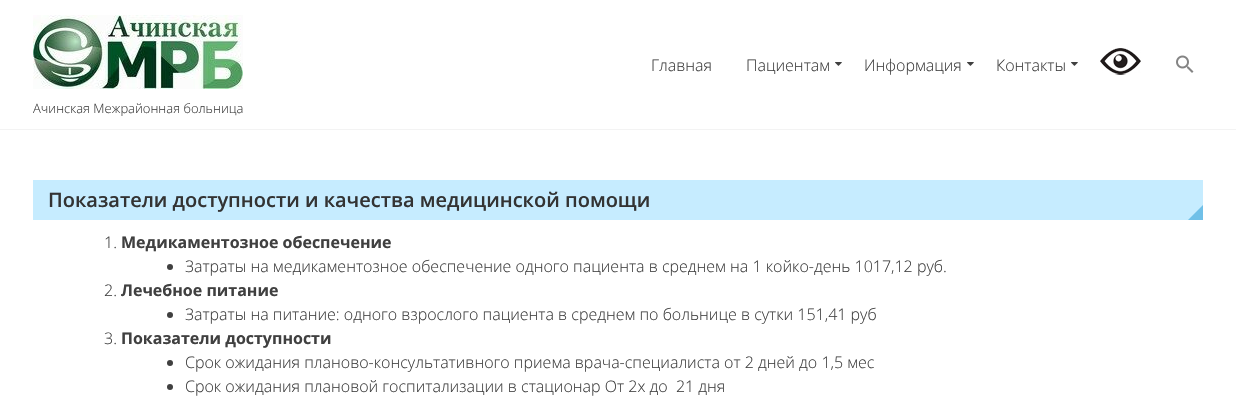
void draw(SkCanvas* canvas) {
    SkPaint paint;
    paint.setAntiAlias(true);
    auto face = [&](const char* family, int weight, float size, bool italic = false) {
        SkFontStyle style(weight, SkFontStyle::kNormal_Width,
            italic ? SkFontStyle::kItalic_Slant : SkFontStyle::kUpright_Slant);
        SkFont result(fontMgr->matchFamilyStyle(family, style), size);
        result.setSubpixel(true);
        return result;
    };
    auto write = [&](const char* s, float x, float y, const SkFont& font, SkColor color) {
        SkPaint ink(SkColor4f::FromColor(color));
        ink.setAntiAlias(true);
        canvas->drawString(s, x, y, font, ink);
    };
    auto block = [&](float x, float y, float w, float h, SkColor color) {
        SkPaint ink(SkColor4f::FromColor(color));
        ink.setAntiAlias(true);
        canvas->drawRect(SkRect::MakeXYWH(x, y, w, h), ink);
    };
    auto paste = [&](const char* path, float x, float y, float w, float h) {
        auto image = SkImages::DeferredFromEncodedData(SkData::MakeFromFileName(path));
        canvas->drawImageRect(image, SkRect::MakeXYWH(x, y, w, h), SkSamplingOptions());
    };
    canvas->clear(SK_ColorWHITE);
    block(0, 129, 1236, 1, SkColorSetRGB(243, 243, 243));
    auto kFont1 = face("Open Sans", 300, 16);
    write("Главная", 651, 71, kFont1, SkColorSetRGB(64, 64, 64));
    write("Пациентам", 746, 71, kFont1, SkColorSetRGB(64, 64, 64));
    paste("pic1.png", 835, 62, 7, 4);
    write("Информация", 864, 71, kFont1, SkColorSetRGB(64, 64, 64));
    paste("pic1.png", 967, 62, 7, 4);
    write("Контакты", 996, 71, kFont1, SkColorSetRGB(64, 64, 64));
    paste("pic1.png", 1071, 62, 7, 4);
    paste("pic2.png", 1100, 48, 41, 27);
    paste("pic3.png", 1176, 55, 18, 18);
    paste("pic4.png", 33, 15, 210, 74);
    auto kFont2 = face("Open Sans", 300, 13);
    write("Ачинская Межрайонная больница", 33, 113, kFont2, SkColorSetRGB(64, 64, 64));
    block(33, 180, 1170, 40, SkColorSetRGB(198, 236, 255));
    auto kFont3 = face("Open Sans", 600, 20);
    write("Показатели доступности и качества медицинской помощи", 48, 207, kFont3, SkColorSetRGB(51, 51, 51));
    paint.setColor(SkColorSetRGB(112, 192, 232));
    canvas->drawPath(SkPathBuilder().moveTo(1203, 220).lineTo(1188, 220).lineTo(1203, 205).close().detach(), paint);
    write("1.", 104, 248, kFont1, SkColorSetRGB(64, 64, 64));
    auto kFont4 = face("Open Sans", 700, 16);
    write("Медикаментозное обеспечение", 121, 248, kFont4, SkColorSetRGB(64, 64, 64));
    paint.setColor(SkColorSetRGB(64, 64, 64));
    canvas->drawCircle(170, 267, 3, paint);
    write("Затраты на медикаментозное обеспечение одного пациента в среднем на 1 койко-день 1017,12 руб.", 185, 272, kFont1, SkColorSetRGB(64, 64, 64));
    write("2.", 104, 296, kFont1, SkColorSetRGB(64, 64, 64));
    write("Лечебное питание", 121, 296, kFont4, SkColorSetRGB(64, 64, 64));
    canvas->drawCircle(170, 315, 3, paint);
    write("Затраты на питание: одного взрослого пациента в среднем по больнице в сутки 151,41 руб", 185, 320, kFont1, SkColorSetRGB(64, 64, 64));
    write("3.", 104, 344, kFont1, SkColorSetRGB(64, 64, 64));
    write("Показатели доступности", 121, 344, kFont4, SkColorSetRGB(64, 64, 64));
    canvas->drawCircle(170, 363, 3, paint);
    write("Срок ожидания планово-консультативного приема врача-специалиста от 2 дней до 1,5 мес", 185, 368, kFont1, SkColorSetRGB(64, 64, 64));
    canvas->drawCircle(170, 387, 3, paint);
    write("Срок ожидания плановой госпитализации в стационар От 2х до  21 дня", 185, 392, kFont1, SkColorSetRGB(64, 64, 64));
}
